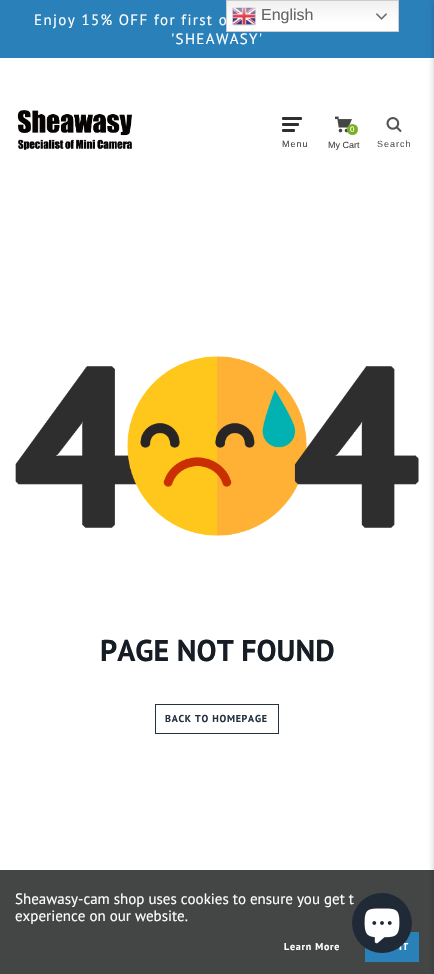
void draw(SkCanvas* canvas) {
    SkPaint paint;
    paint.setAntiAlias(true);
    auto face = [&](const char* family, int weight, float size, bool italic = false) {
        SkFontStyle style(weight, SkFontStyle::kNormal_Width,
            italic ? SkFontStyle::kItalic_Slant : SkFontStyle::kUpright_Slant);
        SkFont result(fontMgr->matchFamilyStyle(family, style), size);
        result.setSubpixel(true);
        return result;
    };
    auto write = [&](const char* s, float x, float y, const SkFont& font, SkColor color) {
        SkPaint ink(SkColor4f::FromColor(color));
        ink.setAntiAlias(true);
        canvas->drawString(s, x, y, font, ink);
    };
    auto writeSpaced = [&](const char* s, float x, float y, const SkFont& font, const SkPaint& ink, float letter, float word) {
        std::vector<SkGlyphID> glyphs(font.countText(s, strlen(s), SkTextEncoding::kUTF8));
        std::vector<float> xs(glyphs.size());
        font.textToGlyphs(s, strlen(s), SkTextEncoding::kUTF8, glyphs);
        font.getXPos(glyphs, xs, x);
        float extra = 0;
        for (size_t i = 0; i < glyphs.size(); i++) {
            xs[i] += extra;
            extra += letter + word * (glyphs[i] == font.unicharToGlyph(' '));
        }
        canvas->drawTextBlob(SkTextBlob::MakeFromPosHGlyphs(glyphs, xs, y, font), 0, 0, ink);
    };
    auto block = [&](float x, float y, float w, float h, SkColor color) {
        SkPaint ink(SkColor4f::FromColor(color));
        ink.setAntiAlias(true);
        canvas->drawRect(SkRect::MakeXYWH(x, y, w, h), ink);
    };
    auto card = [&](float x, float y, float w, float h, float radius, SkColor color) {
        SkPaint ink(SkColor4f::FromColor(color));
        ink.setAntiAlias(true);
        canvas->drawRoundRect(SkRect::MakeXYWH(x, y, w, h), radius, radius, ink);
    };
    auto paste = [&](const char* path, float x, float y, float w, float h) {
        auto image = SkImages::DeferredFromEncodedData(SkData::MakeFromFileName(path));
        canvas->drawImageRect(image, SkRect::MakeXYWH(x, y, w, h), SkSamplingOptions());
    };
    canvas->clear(SK_ColorWHITE);
    block(0, 0, 434, 58, SkColorSetRGB(42, 128, 185));
    auto kFont1 = face("PT Sans", 400, 15);
    paint.setColor(SK_ColorWHITE);
    writeSpaced("Enjoy 15% OFF for first o", 34, 25, kFont1, paint, 1.35f, 0);
    writeSpaced("'SHEAWASY'", 171, 44, kFont1, paint, 1.35f, 0);
    {
        const SkColor colors[] = {SkColorSetRGB(239, 239, 239), SK_ColorWHITE};
        const float stops[] = {0, 0.7f};
        const SkPoint ends[] = {{313, 0}, {313, 32}};
        paint.setShader(SkGradientShader::MakeLinear(ends, colors, stops, 2, SkTileMode::kClamp));
        paint.setAlpha(255);
    }
    canvas->drawRect(SkRect::MakeXYWH(227, 1, 171, 30), paint);
    paint.setStyle(SkPaint::kStroke_Style);
    paint.setStrokeWidth(1);
    paint.setShader(nullptr);
    paint.setColor(SkColorSetRGB(204, 204, 204));
    canvas->drawRect(SkRect::MakeXYWH(226.5f, 0.5f, 172, 31), paint);
    paste("pic1.png", 232, 7, 24, 19);
    auto kFont2 = face("Liberation Sans", 400, 16);
    write("English", 261, 20, kFont2, SkColorSetRGB(102, 102, 102));
    paste("pic2.png", 376, 13, 11, 7);
    block(0, 870, 434, 104, SkColorSetRGB(68, 70, 69));
    paint.setStyle(SkPaint::kFill_Style);
    paint.setColor(SkColorSetARGB(51, 0, 0, 0));
    paint.setMaskFilter(SkMaskFilter::MakeBlur(kNormal_SkBlurStyle, 3));
    canvas->drawRect(SkRect::MakeXYWH(434, 2, 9, 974), paint);
    paint.setMaskFilter(nullptr);
    paste("pic3.png", 17, 110, 115, 40);
    card(282, 117, 20, 3, 1, SkColorSetRGB(49, 46, 46));
    card(282, 123, 17, 3, 1, SkColorSetRGB(49, 46, 46));
    card(282, 129, 13, 3, 1, SkColorSetRGB(49, 46, 46));
    auto kFont3 = face("Liberation Sans", 400, 9);
    paint.setColor(SkColorSetRGB(68, 70, 69));
    writeSpaced("Menu", 282, 147, kFont3, paint, 1, 0);
    paste("pic4.png", 335, 116, 17, 17);
    paint.setColor(SkColorSetRGB(123, 174, 35));
    canvas->drawCircle(352.5f, 129.5f, 5.5f, paint);
    auto kFont4 = face("Liberation Sans", 400, 8);
    write("0", 350, 132, kFont4, SK_ColorWHITE);
    write("My Cart", 328, 148, kFont3, SkColorSetRGB(68, 70, 69));
    paste("pic5.png", 386, 117, 16, 15);
    paint.setColor(SkColorSetRGB(85, 85, 85));
    writeSpaced("Search", 377, 147, kFont3, paint, 1, 0);
    paste("pic6.png", 15, 356, 404, 180);
    auto kFont5 = face("PT Sans", 700, 30);
    write("PAGE NOT FOUND", 100, 661, kFont5, SkColorSetRGB(22, 29, 37));
    paint.setStyle(SkPaint::kStroke_Style);
    paint.setColor(SkColorSetRGB(36, 49, 66));
    canvas->drawRect(SkRect::MakeXYWH(155.5f, 704.5f, 123, 29), paint);
    auto kFont6 = face("PT Sans", 700, 10);
    paint.setStyle(SkPaint::kFill_Style);
    writeSpaced("BACK TO HOMEPAGE", 165, 722, kFont6, paint, 0.75f, 0);
    write("Sheawasy-cam shop uses cookies to ensure you get t", 15, 904, kFont1, SK_ColorWHITE);
    write("experience on our website.", 15, 921, kFont1, SK_ColorWHITE);
    paint.setColor(SK_ColorWHITE);
    writeSpaced("Learn More", 284, 950, kFont6, paint, 0.75f, 0);
    block(365, 932, 54, 30, SkColorSetRGB(42, 128, 185));
    writeSpaced("IT", 399, 950, kFont6, paint, 0.75f, 0);
    paint.setColor(SkColorSetRGB(32, 42, 54));
    canvas->drawCircle(382, 923, 30, paint);
    paste("pic7.png", 364, 908, 36, 36);
}
